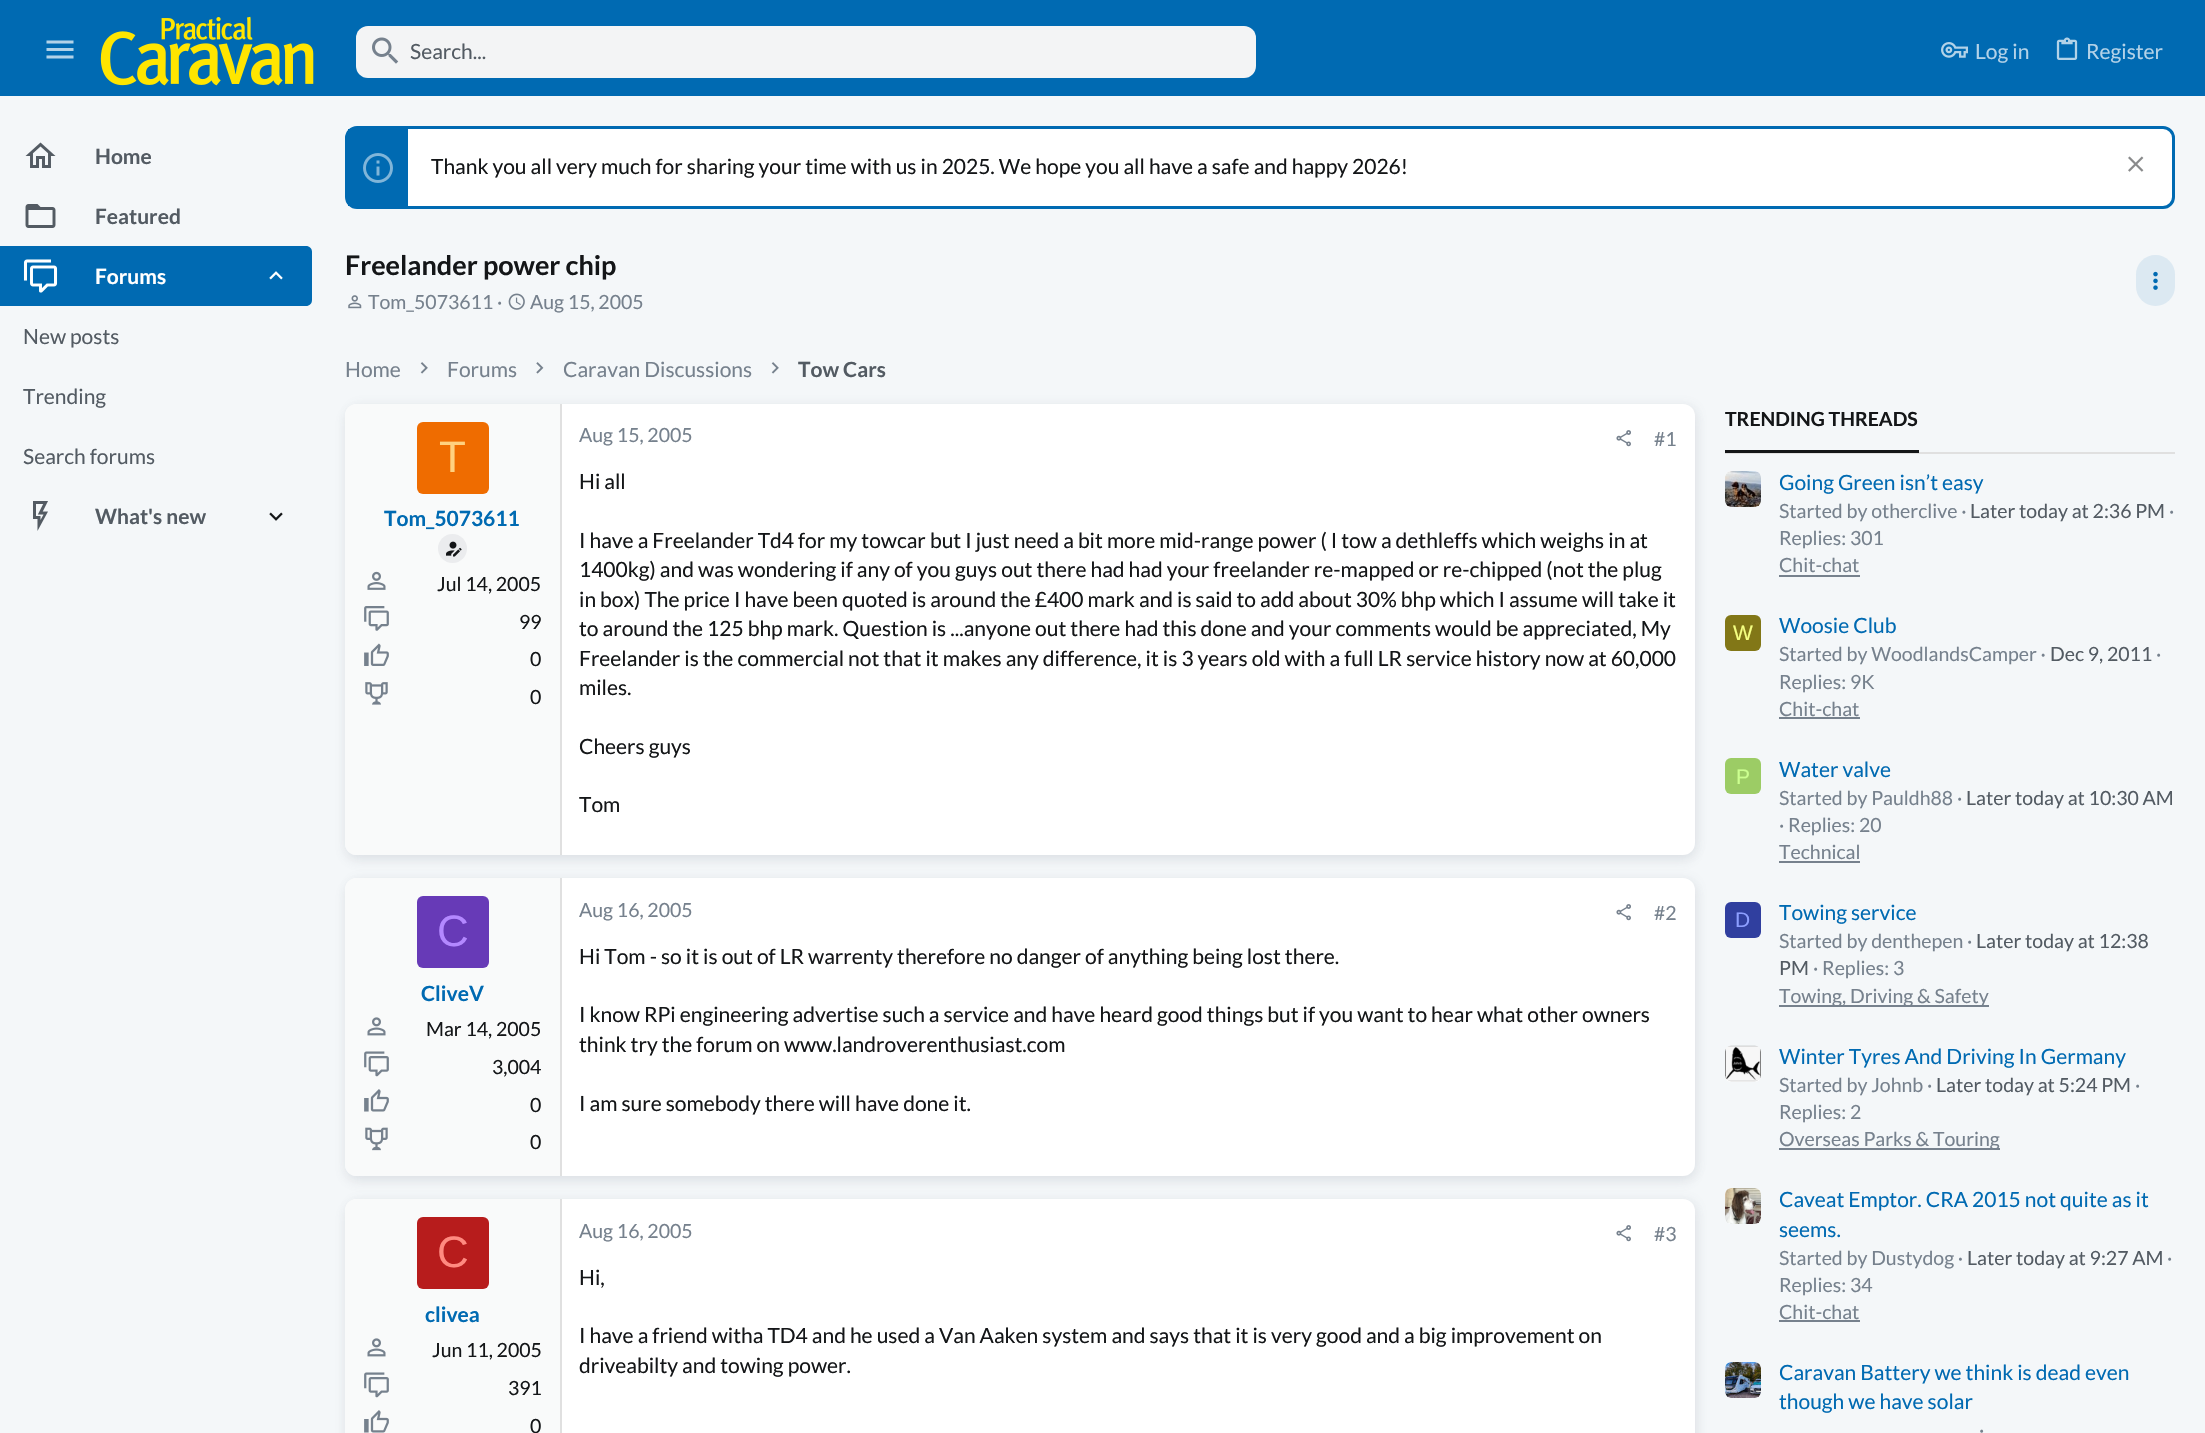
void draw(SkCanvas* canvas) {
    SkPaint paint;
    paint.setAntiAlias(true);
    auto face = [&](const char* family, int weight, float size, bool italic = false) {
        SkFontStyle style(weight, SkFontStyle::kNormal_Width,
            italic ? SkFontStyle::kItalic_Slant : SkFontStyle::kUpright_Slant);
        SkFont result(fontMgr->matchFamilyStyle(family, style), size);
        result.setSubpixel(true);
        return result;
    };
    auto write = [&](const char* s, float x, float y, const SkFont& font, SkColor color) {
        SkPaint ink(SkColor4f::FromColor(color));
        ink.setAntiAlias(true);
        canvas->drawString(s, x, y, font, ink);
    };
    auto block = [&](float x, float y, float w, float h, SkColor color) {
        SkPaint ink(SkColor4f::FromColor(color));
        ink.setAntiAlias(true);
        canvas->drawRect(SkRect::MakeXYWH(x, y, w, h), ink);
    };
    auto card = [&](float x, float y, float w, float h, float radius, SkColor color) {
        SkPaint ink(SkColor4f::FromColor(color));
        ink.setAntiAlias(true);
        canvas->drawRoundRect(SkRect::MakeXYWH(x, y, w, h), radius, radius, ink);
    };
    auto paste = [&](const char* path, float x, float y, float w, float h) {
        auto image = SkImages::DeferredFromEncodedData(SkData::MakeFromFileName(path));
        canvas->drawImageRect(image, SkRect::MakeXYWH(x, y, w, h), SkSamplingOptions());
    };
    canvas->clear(SkColorSetRGB(244, 247, 249));
    block(0, 0, 2205, 96, SkColorSetRGB(0, 106, 178));
    paste("pic1.png", 46, 40, 28, 19);
    paste("pic2.png", 100, 16, 214, 70);
    card(356, 26, 900, 52, 12, SkColorSetRGB(243, 244, 245));
    paste("pic3.png", 372, 37, 27, 27);
    auto kFont1 = face("Lato", 400, 21);
    write("Search...", 410, 59, kFont1, SkColorSetRGB(83, 91, 99));
    paste("pic4.png", 1941, 42, 27, 16);
    write("Log in", 1975, 59, kFont1, SkColorSetRGB(179, 210, 232));
    paste("pic5.png", 2056, 37, 22, 23);
    write("Register", 2086, 59, kFont1, SkColorSetRGB(179, 210, 232));
    paste("pic6.png", 25, 142, 31, 26);
    auto kFont2 = face("Lato", 700, 21);
    write("Home", 95, 164, kFont2, SkColorSetRGB(83, 91, 99));
    paste("pic7.png", 25, 204, 31, 24);
    write("Featured", 95, 224, kFont2, SkColorSetRGB(83, 91, 99));
    paint.setColor(SkColorSetRGB(0, 106, 178));
    canvas->drawPath(SkPathBuilder().moveTo(0, 246).lineTo(306, 246).cubicTo(309.5f, 246, 312, 248.5f, 312, 252).lineTo(312, 300).cubicTo(312, 303.5f, 309.5f, 306, 306, 306).lineTo(0, 306).close().detach(), paint);
    paste("pic8.png", 23, 259, 35, 34);
    write("Forums", 95, 284, kFont2, SK_ColorWHITE);
    paste("pic9.png", 269, 271, 14, 9);
    write("New posts", 23, 344, kFont1, SkColorSetRGB(83, 91, 99));
    write("Trending", 23, 404, kFont1, SkColorSetRGB(83, 91, 99));
    write("Search forums", 23, 464, kFont1, SkColorSetRGB(83, 91, 99));
    paste("pic10.png", 33, 501, 15, 30);
    write("What's new", 95, 524, kFont2, SkColorSetRGB(83, 91, 99));
    paste("pic11.png", 269, 512, 14, 9);
    paint.setColor(SK_ColorWHITE);
    canvas->drawRoundRect(SkRect::MakeXYWH(346.5f, 127.5f, 1827, 80), 10.5f, 10.5f, paint);
    paint.setStyle(SkPaint::kStroke_Style);
    paint.setStrokeWidth(3);
    paint.setColor(SkColorSetRGB(0, 106, 178));
    canvas->drawRoundRect(SkRect::MakeXYWH(346.5f, 127.5f, 1827, 80), 10.5f, 10.5f, paint);
    block(348, 129, 60, 77, SkColorSetRGB(0, 106, 178));
    paste("pic12.png", 363, 153, 30, 30);
    write("Thank you all very much for sharing your time with us in 2025. We hope you all have a safe and happy 2026!", 431, 174, kFont1, SkColorSetRGB(20, 22, 24));
    paste("pic13.png", 2128, 156, 16, 16);
    auto kFont3 = face("Lato", 700, 27);
    write("Freelander power chip", 345, 275, kFont3, SkColorSetRGB(20, 22, 24));
    paste("pic14.png", 348, 295, 14, 14);
    auto kFont4 = face("Lato", 400, 19.5f);
    write("Tom_5073611 ·", 368, 309, kFont4, SkColorSetRGB(118, 129, 141));
    paste("pic15.png", 508, 293, 17, 17);
    write("Aug 15, 2005", 530, 309, kFont4, SkColorSetRGB(118, 129, 141));
    card(2136, 255, 39, 51, 19.5f, SkColorSetRGB(220, 233, 242));
    paste("pic16.png", 2153, 271, 5, 19);
    write("Home", 345, 377, kFont1, SkColorSetRGB(118, 129, 141));
    paste("pic17.png", 420, 362, 8, 12);
    write("Forums", 447, 377, kFont1, SkColorSetRGB(118, 129, 141));
    paste("pic18.png", 536, 362, 8, 12);
    write("Caravan Discussions", 563, 377, kFont1, SkColorSetRGB(118, 129, 141));
    paste("pic17.png", 771, 362, 8, 12);
    write("Tow Cars", 798, 377, kFont2, SkColorSetRGB(83, 91, 99));
    paint.setStyle(SkPaint::kFill_Style);
    paint.setColor(SkColorSetARGB(20, 107, 119, 128));
    paint.setMaskFilter(SkMaskFilter::MakeBlur(kNormal_SkBlurStyle, 6));
    canvas->drawRoundRect(SkRect::MakeXYWH(348, 404, 1350, 451), 12, 12, paint);
    paint.setMaskFilter(nullptr);
    paint.setColor(SkColorSetARGB(31, 107, 119, 128));
    paint.setMaskFilter(SkMaskFilter::MakeBlur(kNormal_SkBlurStyle, 6));
    canvas->drawRoundRect(SkRect::MakeXYWH(345, 410, 1350, 451), 12, 12, paint);
    paint.setMaskFilter(nullptr);
    card(345, 404, 1350, 451, 12, SK_ColorWHITE);
    paint.setColor(SkColorSetRGB(249, 250, 250));
    canvas->drawPath(SkPathBuilder().moveTo(356, 404).lineTo(561, 404).lineTo(561, 855).lineTo(356, 855).cubicTo(350, 855, 345, 850, 345, 844).lineTo(345, 415).cubicTo(345, 409, 350, 404, 356, 404).close().detach(), paint);
    block(560, 404, 2, 451, SkColorSetRGB(224, 224, 224));
    card(417, 422, 72, 72, 6, SkColorSetRGB(239, 108, 0));
    auto kFont5 = face("Liberation Sans", 400, 44);
    write("T", 439, 472, kFont5, SkColorSetRGB(255, 209, 128));
    write("Tom_5073611", 384, 526, kFont2, SkColorSetRGB(0, 106, 178));
    paint.setColor(SkColorSetRGB(235, 236, 238));
    canvas->drawCircle(452.5f, 548.5f, 14.5f, paint);
    paste("pic19.png", 446, 541, 16, 16);
    paste("pic20.png", 367, 571, 19, 19);
    write("Jul 14, 2005", 437, 591, kFont4, SkColorSetRGB(20, 22, 24));
    paste("pic21.png", 364, 606, 25, 25);
    write("99", 519, 629, kFont4, SkColorSetRGB(20, 22, 24));
    paste("pic22.png", 364, 643, 25, 23);
    write("0", 530, 666, kFont4, SkColorSetRGB(20, 22, 24));
    paste("pic23.png", 365, 682, 23, 23);
    write("0", 530, 704, kFont4, SkColorSetRGB(20, 22, 24));
    write("Aug 15, 2005", 579, 442, kFont4, SkColorSetRGB(118, 129, 141));
    paste("pic24.png", 1616, 430, 15, 17);
    write("#1", 1654, 446, kFont4, SkColorSetRGB(118, 129, 141));
    write("Hi all", 579, 489, kFont1, SkColorSetRGB(20, 22, 24));
    write("I have a Freelander Td4 for my towcar but I just need a bit more mid-range power ( I tow a dethleffs which weighs in at", 579, 548, kFont1, SkColorSetRGB(20, 22, 24));
    write("1400kg) and was wondering if any of you guys out there had had your freelander re-mapped or re-chipped (not the plug", 579, 577, kFont1, SkColorSetRGB(20, 22, 24));
    write("in box) The price I have been quoted is around the £400 mark and is said to add about 30% bhp which I assume will take it", 579, 607, kFont1, SkColorSetRGB(20, 22, 24));
    write("to around the 125 bhp mark. Question is ...anyone out there had this done and your comments would be appreciated, My", 579, 636, kFont1, SkColorSetRGB(20, 22, 24));
    write("Freelander is the commercial not that it makes any difference, it is 3 years old with a full LR service history now at 60,000", 579, 666, kFont1, SkColorSetRGB(20, 22, 24));
    write("miles.", 579, 695, kFont1, SkColorSetRGB(20, 22, 24));
    write("Cheers guys", 579, 754, kFont1, SkColorSetRGB(20, 22, 24));
    write("Tom", 579, 812, kFont1, SkColorSetRGB(20, 22, 24));
    paint.setColor(SkColorSetARGB(20, 107, 119, 128));
    paint.setMaskFilter(SkMaskFilter::MakeBlur(kNormal_SkBlurStyle, 6));
    canvas->drawRoundRect(SkRect::MakeXYWH(348, 878, 1350, 298), 12, 12, paint);
    paint.setMaskFilter(nullptr);
    paint.setColor(SkColorSetARGB(31, 107, 119, 128));
    paint.setMaskFilter(SkMaskFilter::MakeBlur(kNormal_SkBlurStyle, 6));
    canvas->drawRoundRect(SkRect::MakeXYWH(345, 884, 1350, 298), 12, 12, paint);
    paint.setMaskFilter(nullptr);
    card(345, 878, 1350, 298, 12, SK_ColorWHITE);
    paint.setColor(SkColorSetRGB(249, 250, 250));
    canvas->drawPath(SkPathBuilder().moveTo(356, 878).lineTo(561, 878).lineTo(561, 1176).lineTo(356, 1176).cubicTo(350, 1176, 345, 1171, 345, 1165).lineTo(345, 889).cubicTo(345, 883, 350, 878, 356, 878).close().detach(), paint);
    block(560, 878, 2, 298, SkColorSetRGB(224, 224, 224));
    card(417, 896, 72, 72, 6, SkColorSetRGB(103, 58, 183));
    write("C", 437, 946, kFont5, SkColorSetRGB(179, 136, 255));
    write("CliveV", 421, 1001, kFont2, SkColorSetRGB(0, 106, 178));
    paste("pic25.png", 367, 1017, 19, 19);
    write("Mar 14, 2005", 426, 1036, kFont4, SkColorSetRGB(20, 22, 24));
    paste("pic26.png", 364, 1051, 25, 26);
    write("3,004", 492, 1074, kFont4, SkColorSetRGB(20, 22, 24));
    paste("pic27.png", 364, 1089, 25, 23);
    write("0", 530, 1112, kFont4, SkColorSetRGB(20, 22, 24));
    paste("pic28.png", 365, 1127, 23, 24);
    write("0", 530, 1149, kFont4, SkColorSetRGB(20, 22, 24));
    write("Aug 16, 2005", 579, 917, kFont4, SkColorSetRGB(118, 129, 141));
    paste("pic24.png", 1616, 904, 15, 17);
    write("#2", 1654, 920, kFont4, SkColorSetRGB(118, 129, 141));
    write("Hi Tom - so it is out of LR warrenty therefore no danger of anything being lost there.", 579, 964, kFont1, SkColorSetRGB(20, 22, 24));
    write("I know RPi engineering advertise such a service and have heard good things but if you want to hear what other owners", 579, 1022, kFont1, SkColorSetRGB(20, 22, 24));
    write("think try the forum on www.landroverenthusiast.com", 579, 1052, kFont1, SkColorSetRGB(20, 22, 24));
    write("I am sure somebody there will have done it.", 579, 1111, kFont1, SkColorSetRGB(20, 22, 24));
    paint.setColor(SkColorSetARGB(20, 107, 119, 128));
    paint.setMaskFilter(SkMaskFilter::MakeBlur(kNormal_SkBlurStyle, 6));
    canvas->drawRoundRect(SkRect::MakeXYWH(348, 1199, 1350, 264), 12, 12, paint);
    paint.setMaskFilter(nullptr);
    paint.setColor(SkColorSetARGB(31, 107, 119, 128));
    paint.setMaskFilter(SkMaskFilter::MakeBlur(kNormal_SkBlurStyle, 6));
    canvas->drawRoundRect(SkRect::MakeXYWH(345, 1205, 1350, 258), 12, 12, paint);
    paint.setMaskFilter(nullptr);
    card(345, 1199, 1350, 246, 12, SK_ColorWHITE);
    paint.setColor(SkColorSetRGB(249, 250, 250));
    canvas->drawPath(SkPathBuilder().moveTo(356, 1199).lineTo(561, 1199).lineTo(561, 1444).lineTo(356, 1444).cubicTo(350, 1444, 345, 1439, 345, 1433).lineTo(345, 1210).cubicTo(345, 1204, 350, 1199, 356, 1199).close().detach(), paint);
    block(560, 1199, 2, 234, SkColorSetRGB(224, 224, 224));
    card(417, 1217, 72, 72, 6, SkColorSetRGB(183, 28, 28));
    write("C", 437, 1267, kFont5, SkColorSetRGB(255, 138, 128));
    write("clivea", 425, 1322, kFont2, SkColorSetRGB(0, 106, 178));
    paste("pic25.png", 367, 1338, 19, 19);
    write("Jun 11, 2005", 432, 1357, kFont4, SkColorSetRGB(20, 22, 24));
    paste("pic26.png", 364, 1372, 25, 26);
    write("391", 508, 1395, kFont4, SkColorSetRGB(20, 22, 24));
    paste("pic27.png", 364, 1410, 25, 23);
    write("0", 530, 1433, kFont4, SkColorSetRGB(20, 22, 24));
    write("Aug 16, 2005", 579, 1238, kFont4, SkColorSetRGB(118, 129, 141));
    paste("pic24.png", 1616, 1225, 15, 17);
    write("#3", 1654, 1241, kFont4, SkColorSetRGB(118, 129, 141));
    write("Hi,", 579, 1285, kFont1, SkColorSetRGB(20, 22, 24));
    write("I have a friend witha TD4 and he used a Van Aaken system and says that it is very good and a big improvement on", 579, 1343, kFont1, SkColorSetRGB(20, 22, 24));
    write("driveabilty and towing power.", 579, 1373, kFont1, SkColorSetRGB(20, 22, 24));
    block(1725, 452, 450, 2, SkColorSetRGB(224, 224, 224));
    block(1725, 450, 194, 3, SkColorSetRGB(20, 22, 24));
    auto kFont6 = face("Lato", 700, 19.5f);
    write("TRENDING THREADS", 1725, 426, kFont6, SkColorSetRGB(20, 22, 24));
    card(1725, 471, 36, 36, 6, SK_ColorWHITE);
    paste("pic29.png", 1725, 471, 36, 36);
    write("Going Green isn’t easy", 1779, 490, kFont1, SkColorSetRGB(0, 106, 178));
    write("Started by otherclive ·", 1779, 518, kFont4, SkColorSetRGB(118, 129, 141));
    write("Later today at 2:36 PM", 1970, 518, kFont4, SkColorSetRGB(83, 91, 99));
    write("·", 2169, 518, kFont4, SkColorSetRGB(118, 129, 141));
    write("Replies: 301", 1779, 545, kFont4, SkColorSetRGB(118, 129, 141));
    write("Chit-chat", 1779, 572, kFont4, SkColorSetRGB(118, 129, 141));
    block(1779, 575, 81, 2, SkColorSetRGB(118, 129, 141));
    card(1725, 615, 36, 36, 6, SkColorSetRGB(130, 119, 23));
    auto kFont7 = face("Liberation Sans", 400, 21);
    write("W", 1733, 640, kFont7, SkColorSetRGB(244, 255, 129));
    write("Woosie Club", 1779, 633, kFont1, SkColorSetRGB(0, 106, 178));
    write("Started by WoodlandsCamper ·", 1779, 661, kFont4, SkColorSetRGB(118, 129, 141));
    write("Dec 9, 2011", 2050, 661, kFont4, SkColorSetRGB(83, 91, 99));
    write("·", 2156, 661, kFont4, SkColorSetRGB(118, 129, 141));
    write("Replies: 9K", 1779, 689, kFont4, SkColorSetRGB(118, 129, 141));
    write("Chit-chat", 1779, 716, kFont4, SkColorSetRGB(118, 129, 141));
    block(1779, 717, 81, 2, SkColorSetRGB(118, 129, 141));
    card(1725, 758, 36, 36, 6, SkColorSetRGB(156, 204, 101));
    write("P", 1736, 784, kFont7, SkColorSetRGB(204, 255, 144));
    write("Water valve", 1779, 777, kFont1, SkColorSetRGB(0, 106, 178));
    write("Started by Pauldh88 ·", 1779, 805, kFont4, SkColorSetRGB(118, 129, 141));
    write("Later today at 10:30 AM", 1966, 805, kFont4, SkColorSetRGB(83, 91, 99));
    write("· Replies: 20", 1779, 832, kFont4, SkColorSetRGB(118, 129, 141));
    write("Technical", 1779, 859, kFont4, SkColorSetRGB(118, 129, 141));
    block(1779, 861, 81, 2, SkColorSetRGB(118, 129, 141));
    card(1725, 902, 36, 36, 6, SkColorSetRGB(48, 63, 159));
    write("D", 1735, 927, kFont7, SkColorSetRGB(140, 158, 255));
    write("Towing service", 1779, 920, kFont1, SkColorSetRGB(0, 106, 178));
    write("Started by denthepen ·", 1779, 948, kFont4, SkColorSetRGB(118, 129, 141));
    write("Later today at 12:38", 1976, 948, kFont4, SkColorSetRGB(83, 91, 99));
    write("PM", 1779, 975, kFont4, SkColorSetRGB(83, 91, 99));
    write("· Replies: 3", 1813, 975, kFont4, SkColorSetRGB(118, 129, 141));
    block(1779, 1005, 210, 2, SkColorSetRGB(118, 129, 141));
    write("Towing, Driving & Safety", 1779, 1003, kFont4, SkColorSetRGB(118, 129, 141));
    card(1725, 1046, 36, 36, 6, SK_ColorWHITE);
    paste("pic30.png", 1725, 1045, 36, 37);
    write("Winter Tyres And Driving In Germany", 1779, 1064, kFont1, SkColorSetRGB(0, 106, 178));
    write("Started by Johnb ·", 1779, 1092, kFont4, SkColorSetRGB(118, 129, 141));
    write("Later today at 5:24 PM", 1936, 1092, kFont4, SkColorSetRGB(83, 91, 99));
    write("·", 2135, 1092, kFont4, SkColorSetRGB(118, 129, 141));
    write("Replies: 2", 1779, 1119, kFont4, SkColorSetRGB(118, 129, 141));
    block(1779, 1148, 221, 2, SkColorSetRGB(118, 129, 141));
    write("Overseas Parks & Touring", 1779, 1146, kFont4, SkColorSetRGB(118, 129, 141));
    card(1725, 1188, 36, 36, 6, SK_ColorWHITE);
    paste("pic31.png", 1725, 1188, 36, 36);
    write("Caveat Emptor. CRA 2015 not quite as it", 1779, 1207, kFont1, SkColorSetRGB(0, 106, 178));
    write("seems.", 1779, 1237, kFont1, SkColorSetRGB(0, 106, 178));
    write("Started by Dustydog ·", 1779, 1265, kFont4, SkColorSetRGB(118, 129, 141));
    write("Later today at 9:27 AM", 1967, 1265, kFont4, SkColorSetRGB(83, 91, 99));
    write("·", 2167, 1265, kFont4, SkColorSetRGB(118, 129, 141));
    write("Replies: 34", 1779, 1292, kFont4, SkColorSetRGB(118, 129, 141));
    write("Chit-chat", 1779, 1319, kFont4, SkColorSetRGB(118, 129, 141));
    block(1779, 1320, 81, 2, SkColorSetRGB(118, 129, 141));
    card(1725, 1362, 36, 36, 6, SK_ColorWHITE);
    paste("pic32.png", 1725, 1362, 36, 36);
    write("Caravan Battery we think is dead even", 1779, 1380, kFont1, SkColorSetRGB(0, 106, 178));
    write("though we have solar", 1779, 1409, kFont1, SkColorSetRGB(0, 106, 178));
    write("·", 1979, 1437, kFont4, SkColorSetRGB(118, 129, 141));
}
